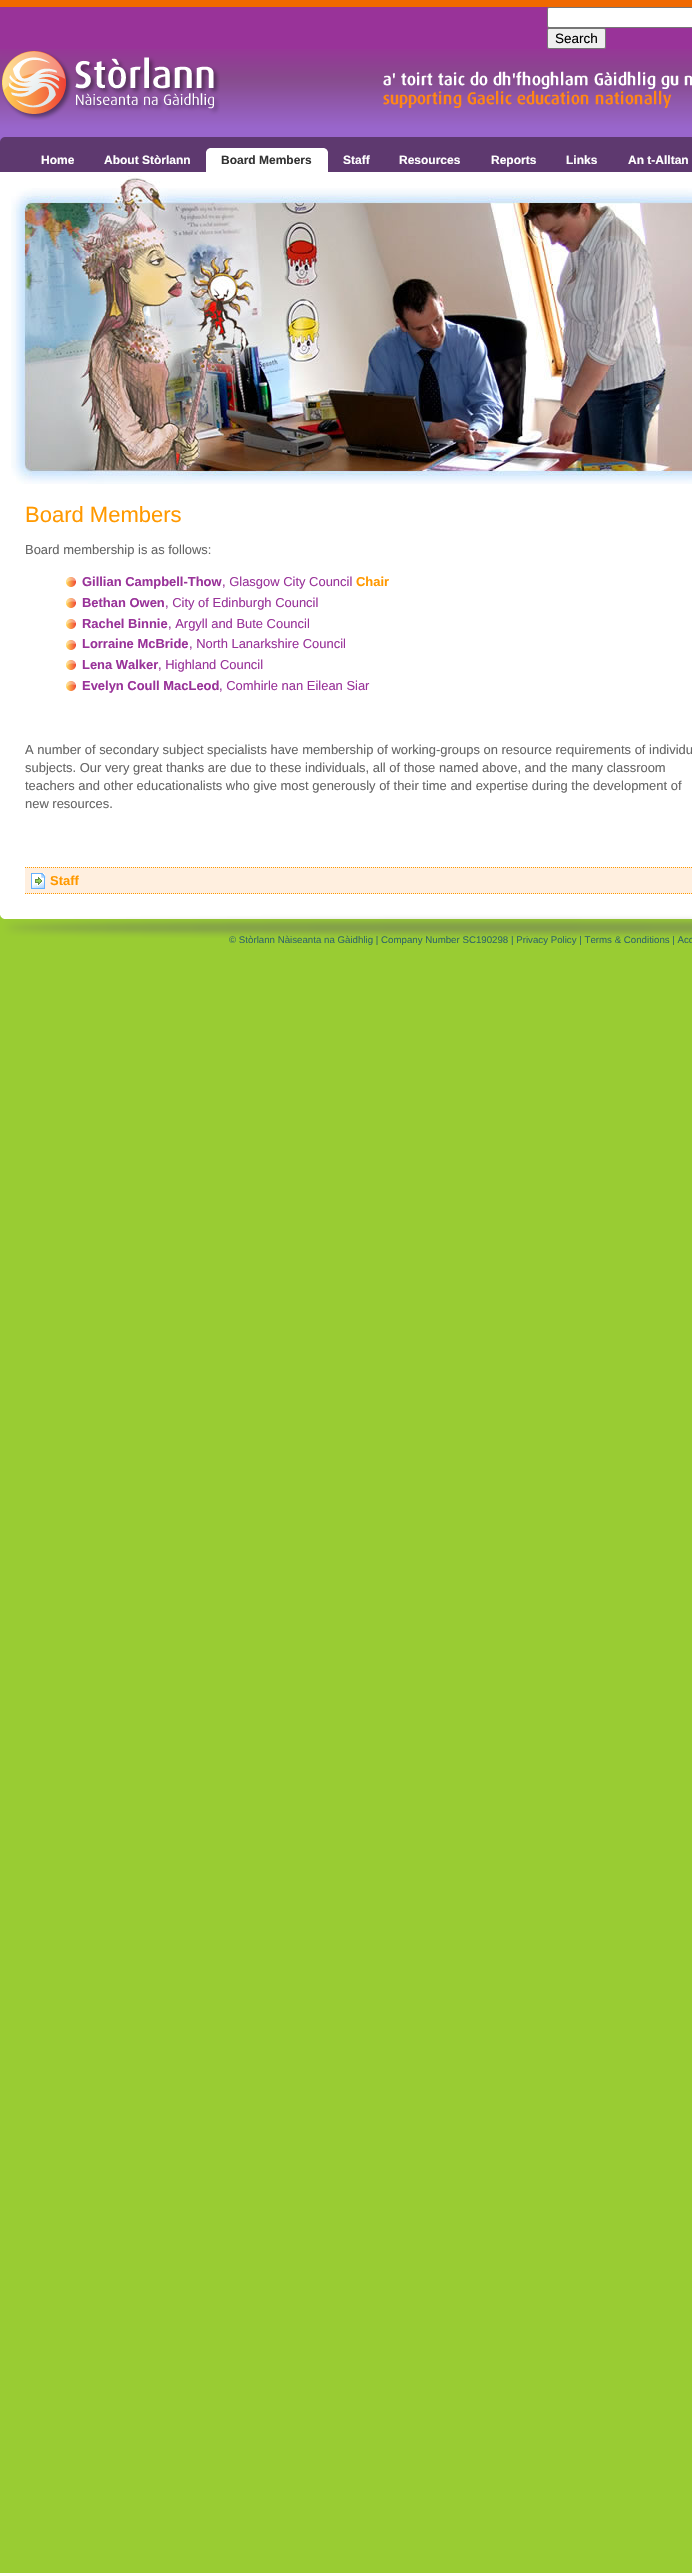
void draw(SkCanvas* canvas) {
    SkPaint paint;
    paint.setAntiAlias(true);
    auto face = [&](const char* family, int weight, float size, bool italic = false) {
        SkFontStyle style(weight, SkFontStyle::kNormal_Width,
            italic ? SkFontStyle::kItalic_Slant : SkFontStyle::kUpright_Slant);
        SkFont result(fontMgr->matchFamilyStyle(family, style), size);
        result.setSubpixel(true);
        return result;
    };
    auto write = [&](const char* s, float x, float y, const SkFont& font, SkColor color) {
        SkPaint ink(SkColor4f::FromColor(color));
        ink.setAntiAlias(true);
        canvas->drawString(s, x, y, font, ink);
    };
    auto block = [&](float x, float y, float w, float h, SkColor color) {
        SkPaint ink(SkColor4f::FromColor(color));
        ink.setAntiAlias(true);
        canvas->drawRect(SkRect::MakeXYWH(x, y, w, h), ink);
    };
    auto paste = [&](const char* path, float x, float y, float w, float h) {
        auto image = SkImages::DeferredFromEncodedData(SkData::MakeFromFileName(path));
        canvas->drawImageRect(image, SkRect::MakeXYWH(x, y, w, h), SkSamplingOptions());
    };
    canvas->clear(SkColorSetRGB(153, 204, 51));
    block(0, 7, 692, 42, SkColorSetRGB(153, 51, 153));
    block(0, 0, 692, 7, SkColorSetRGB(240, 105, 0));
    paint.setColor(SK_ColorWHITE);
    canvas->drawRoundRect(SkRect::MakeXYWH(547.5f, 7.5f, 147, 20), 1.5f, 1.5f, paint);
    paint.setStyle(SkPaint::kStroke_Style);
    paint.setStrokeWidth(1);
    paint.setColor(SkColorSetRGB(118, 118, 118));
    canvas->drawRoundRect(SkRect::MakeXYWH(547.5f, 7.5f, 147, 20), 1.5f, 1.5f, paint);
    paint.setStyle(SkPaint::kFill_Style);
    paint.setColor(SkColorSetRGB(239, 239, 239));
    canvas->drawRoundRect(SkRect::MakeXYWH(547.5f, 28.5f, 58, 20), 1.5f, 1.5f, paint);
    paint.setStyle(SkPaint::kStroke_Style);
    paint.setColor(SkColorSetRGB(118, 118, 118));
    canvas->drawRoundRect(SkRect::MakeXYWH(547.5f, 28.5f, 58, 20), 1.5f, 1.5f, paint);
    auto kFont1 = face("Liberation Sans", 400, 13.5f);
    write("Search", 555, 43, kFont1, SK_ColorBLACK);
    paste("pic1.png", 0, 49, 692, 88);
    paste("pic2.png", 2, 51, 218, 69);
    paste("pic3.png", 383, 71, 309, 37);
    block(0, 137, 692, 35, SkColorSetRGB(94, 57, 111));
    paste("pic4.png", 0, 137, 5, 5);
    auto kFont2 = face("Liberation Sans", 700, 12);
    write("Home", 41, 164, kFont2, SK_ColorWHITE);
    write("About Stòrlann", 104, 164, kFont2, SK_ColorWHITE);
    paste("pic5.png", 206, 148, 9, 24);
    paste("pic6.png", 215, 148, 113, 24);
    write("Board Members", 221, 164, kFont2, SkColorSetRGB(51, 51, 51));
    write("Staff", 343, 164, kFont2, SK_ColorWHITE);
    write("Resources", 399, 164, kFont2, SK_ColorWHITE);
    write("Reports", 491, 164, kFont2, SK_ColorWHITE);
    write("Links", 566, 164, kFont2, SK_ColorWHITE);
    write("An t-Alltan", 628, 164, kFont2, SK_ColorWHITE);
    block(0, 172, 692, 732, SK_ColorWHITE);
    paste("pic7.png", 11, 176, 681, 308);
    auto kFont3 = face("Liberation Sans", 400, 22);
    write("Board Members", 25, 522, kFont3, SkColorSetRGB(255, 153, 0));
    auto kFont4 = face("Liberation Sans", 400, 12.95f);
    write("Board membership is as follows:", 25, 554, kFont4, SkColorSetRGB(102, 102, 102));
    paste("pic8.png", 66, 577, 10, 10);
    auto kFont5 = face("Liberation Sans", 700, 12.95f);
    write("Gillian Campbell-Thow", 82, 586, kFont5, SkColorSetRGB(153, 51, 153));
    write(", Glasgow City Council", 222, 586, kFont4, SkColorSetRGB(153, 51, 153));
    write("Chair", 356, 586, kFont5, SkColorSetRGB(255, 153, 0));
    paste("pic8.png", 66, 598, 10, 10);
    write("Bethan Owen", 82, 607, kFont5, SkColorSetRGB(153, 51, 153));
    write(", City of Edinburgh Council", 165, 607, kFont4, SkColorSetRGB(153, 51, 153));
    paste("pic8.png", 66, 619, 10, 10);
    write("Rachel Binnie", 82, 628, kFont5, SkColorSetRGB(153, 51, 153));
    write(", Argyll and Bute Council", 168, 628, kFont4, SkColorSetRGB(153, 51, 153));
    paste("pic8.png", 66, 640, 10, 10);
    write("Lorraine McBride", 82, 648, kFont5, SkColorSetRGB(153, 51, 153));
    write(", North Lanarkshire Council", 189, 648, kFont4, SkColorSetRGB(153, 51, 153));
    paste("pic8.png", 66, 660, 10, 10);
    write("Lena Walker", 82, 669, kFont5, SkColorSetRGB(153, 51, 153));
    write(", Highland Council", 158, 669, kFont4, SkColorSetRGB(153, 51, 153));
    paste("pic8.png", 66, 681, 10, 10);
    write("Evelyn Coull MacLeod", 82, 690, kFont5, SkColorSetRGB(153, 51, 153));
    write(", Comhirle nan Eilean Siar", 219, 690, kFont4, SkColorSetRGB(153, 51, 153));
    write("A number of secondary subject specialists have membership of working-groups on resource requirements of individu", 25, 754, kFont4, SkColorSetRGB(102, 102, 102));
    write("subjects. Our very great thanks are due to these individuals, all of those named above, and the many classroom", 25, 772, kFont4, SkColorSetRGB(102, 102, 102));
    write("teachers and other educationalists who give most generously of their time and expertise during the development of", 25, 790, kFont4, SkColorSetRGB(102, 102, 102));
    write("new resources.", 25, 808, kFont4, SkColorSetRGB(102, 102, 102));
    block(25, 867, 667, 27, SkColorSetRGB(255, 239, 223));
    paste("pic9.png", 31, 873, 15, 16);
    paint.setColor(SkColorSetRGB(255, 153, 0));
    paint.setPathEffect(SkDashPathEffect::Make({{1, 1}}, 0));
    canvas->drawPath(SkPathBuilder().moveTo(25, 867.5f).lineTo(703, 867.5f).detach(), paint);
    paint.setPathEffect(nullptr);
    paint.setPathEffect(SkDashPathEffect::Make({{1, 1}}, 0));
    canvas->drawPath(SkPathBuilder().moveTo(25, 893.5f).lineTo(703, 893.5f).detach(), paint);
    paint.setPathEffect(nullptr);
    write("Staff", 50, 885, kFont5, SkColorSetRGB(255, 153, 0));
    paste("pic10.png", 0, 904, 692, 34);
    auto kFont6 = face("Liberation Sans", 400, 9.7f);
    write("© Stòrlann Nàiseanta na Gàidhlig | Company Number SC190298 | Privacy Policy | Terms & Conditions | Acc", 229, 943, kFont6, SkColorSetRGB(51, 102, 102));
}
